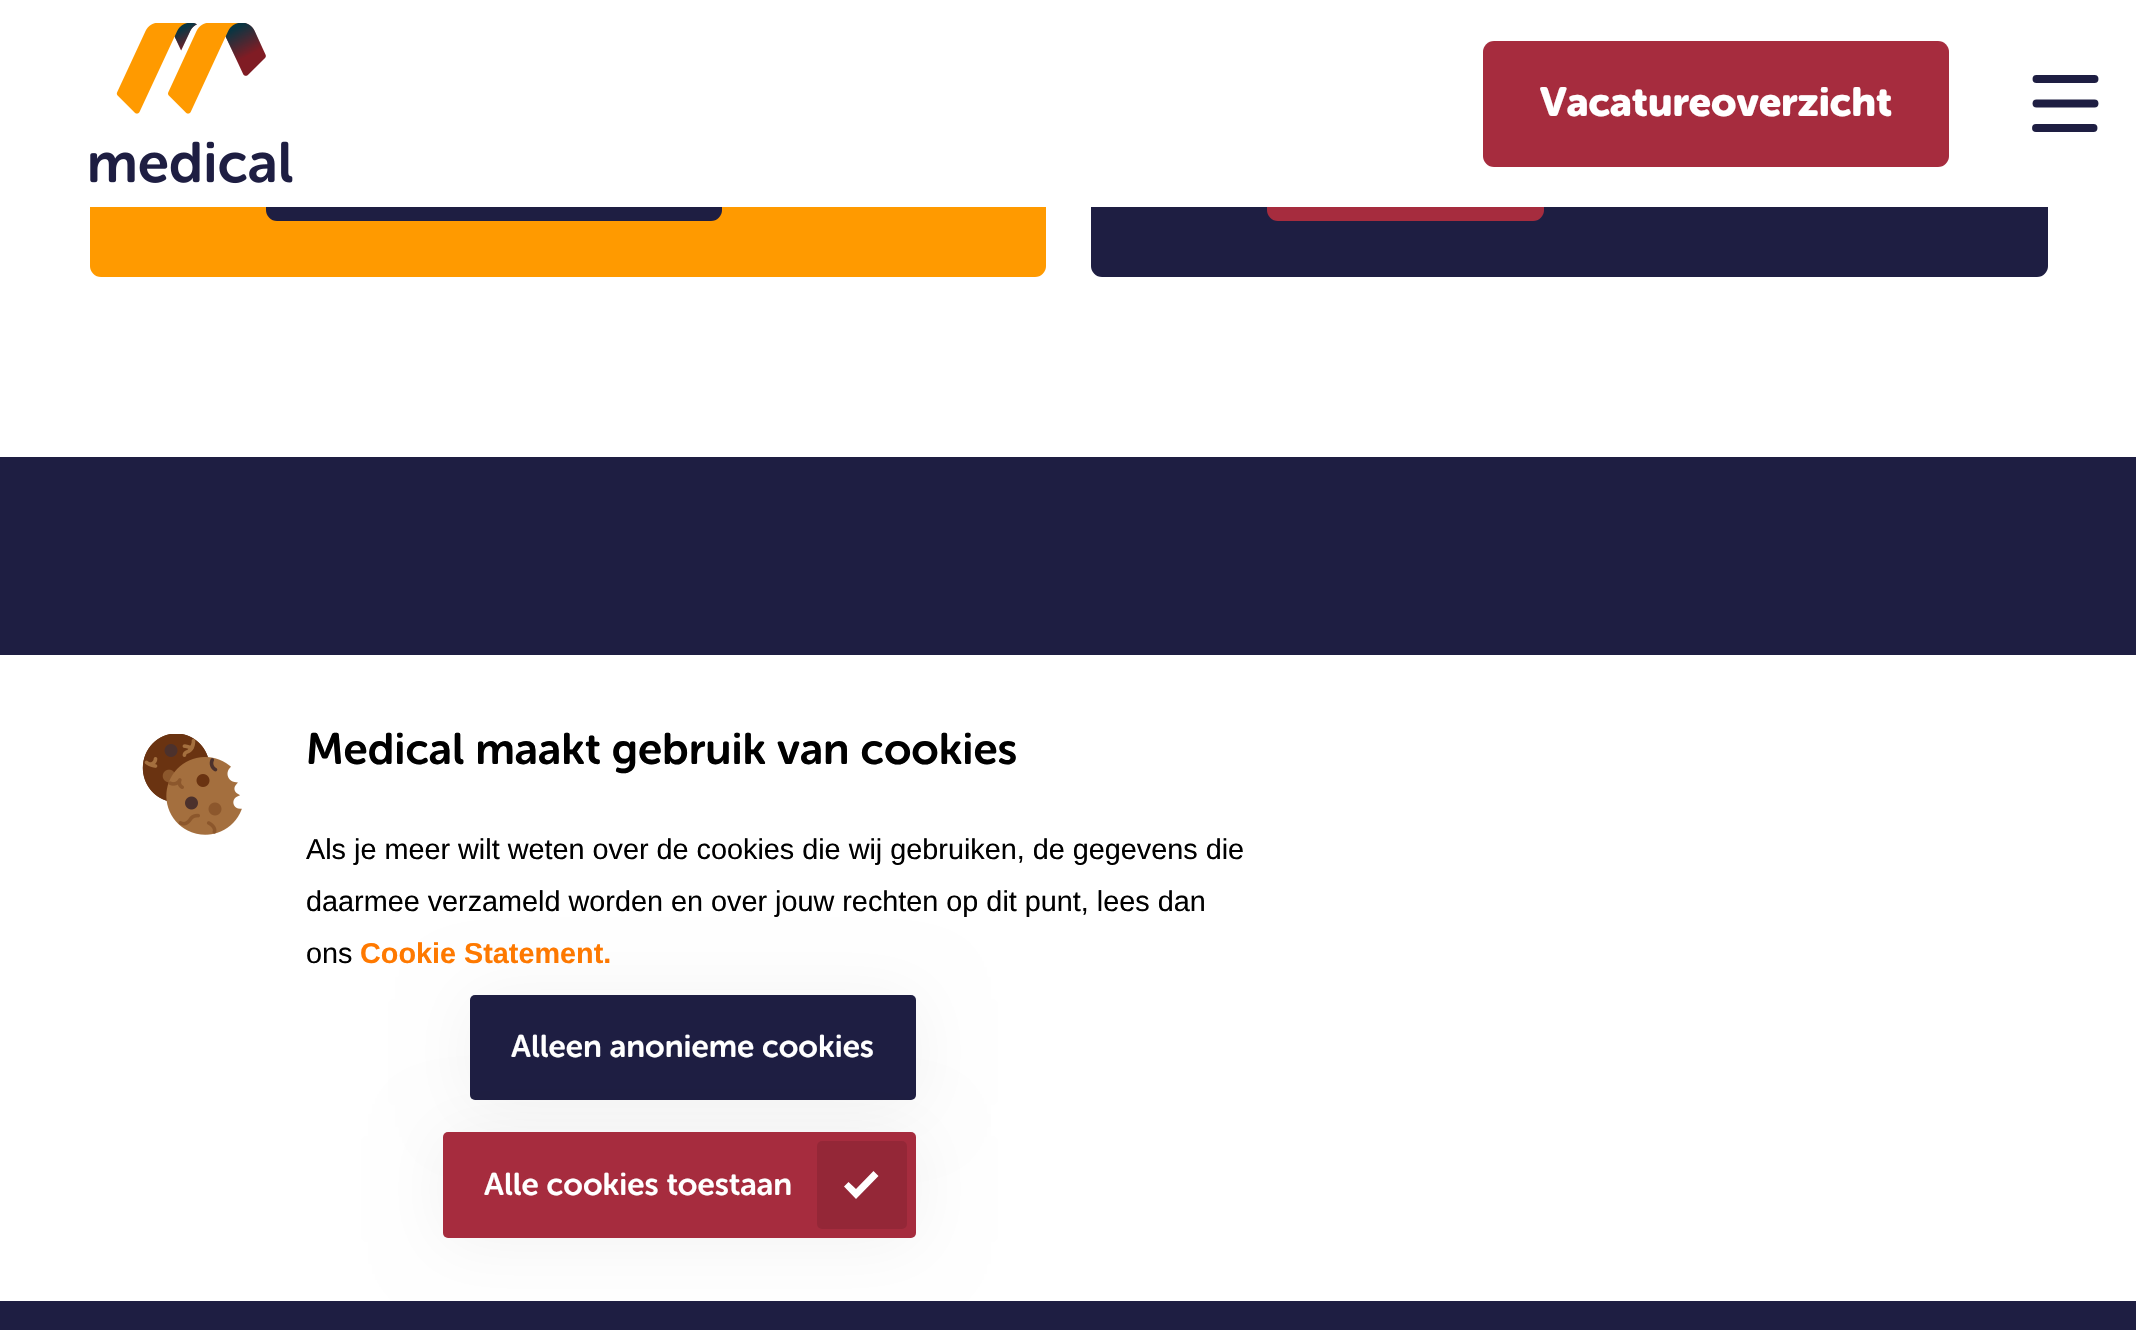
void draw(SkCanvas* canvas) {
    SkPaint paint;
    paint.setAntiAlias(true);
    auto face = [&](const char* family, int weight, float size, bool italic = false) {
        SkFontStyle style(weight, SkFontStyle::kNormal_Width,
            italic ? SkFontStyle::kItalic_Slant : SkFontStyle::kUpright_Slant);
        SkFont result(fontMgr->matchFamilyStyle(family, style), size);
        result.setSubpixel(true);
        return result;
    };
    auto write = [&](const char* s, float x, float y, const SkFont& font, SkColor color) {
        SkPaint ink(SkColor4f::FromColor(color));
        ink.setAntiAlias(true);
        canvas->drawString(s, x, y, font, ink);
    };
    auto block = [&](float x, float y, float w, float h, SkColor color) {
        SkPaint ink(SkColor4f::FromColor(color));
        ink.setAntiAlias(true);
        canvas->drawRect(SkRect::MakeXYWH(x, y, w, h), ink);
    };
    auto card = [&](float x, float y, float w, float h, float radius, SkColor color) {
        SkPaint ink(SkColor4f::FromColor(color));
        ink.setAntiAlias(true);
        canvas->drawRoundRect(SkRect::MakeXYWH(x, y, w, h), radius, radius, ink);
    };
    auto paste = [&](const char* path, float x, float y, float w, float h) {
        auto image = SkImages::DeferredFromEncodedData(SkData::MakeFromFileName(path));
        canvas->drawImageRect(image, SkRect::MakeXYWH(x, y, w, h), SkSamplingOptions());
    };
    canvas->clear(SK_ColorWHITE);
    card(90, -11, 956, 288, 11, SkColorSetRGB(255, 154, 0));
    card(266, 92, 456, 129, 11, SkColorSetRGB(30, 30, 66));
    card(1091, -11, 957, 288, 11, SkColorSetRGB(30, 30, 66));
    card(1267, 92, 277, 129, 11, SkColorSetRGB(166, 44, 62));
    block(90, 0, 1958, 207, SK_ColorWHITE);
    paste("pic1.png", 90, 23, 203, 161);
    card(1483, 41, 466, 126, 11, SkColorSetRGB(166, 44, 62));
    auto kFont1 = face("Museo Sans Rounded", 700, 40.5f);
    write("Vacatureoverzicht", 1540, 116, kFont1, SK_ColorWHITE);
    paint.setStyle(SkPaint::kStroke_Style);
    paint.setStrokeWidth(7.9f);
    paint.setStrokeCap(SkPaint::kRound_Cap);
    paint.setColor(SkColorSetRGB(30, 30, 66));
    canvas->drawPath(SkPathBuilder().moveTo(2094.5f, 79).lineTo(2036.5f, 79).detach(), paint);
    canvas->drawPath(SkPathBuilder().moveTo(2094.5f, 103.5f).lineTo(2036.5f, 103.5f).detach(), paint);
    canvas->drawPath(SkPathBuilder().moveTo(2093.5f, 128).lineTo(2036, 128).detach(), paint);
    block(0, 457, 2136, 873, SkColorSetRGB(30, 30, 66));
    block(0, 655, 2136, 646, SK_ColorWHITE);
    paste("pic2.png", 142, 734, 100, 101);
    auto kFont2 = face("Museo Sans Rounded", 600, 44.1f);
    write("Medical maakt gebruik van cookies", 306, 764, kFont2, SK_ColorBLACK);
    auto kFont3 = face("Liberation Sans", 400, 28.8f);
    write("Als je meer wilt weten over de cookies die wij gebruiken, de gegevens die", 306, 859, kFont3, SK_ColorBLACK);
    write("daarmee verzameld worden en over jouw rechten op dit punt, lees dan", 306, 911, kFont3, SK_ColorBLACK);
    write("ons", 306, 963, kFont3, SK_ColorBLACK);
    auto kFont4 = face("Liberation Sans", 700, 28.8f);
    write("Cookie Statement.", 360, 963, kFont4, SkColorSetRGB(255, 121, 0));
    paint.setStyle(SkPaint::kFill_Style);
    paint.setColor(SkColorSetARGB(13, 0, 0, 0));
    paint.setMaskFilter(SkMaskFilter::MakeBlur(kNormal_SkBlurStyle, 34));
    canvas->drawRoundRect(SkRect::MakeXYWH(470, 999, 446, 106), 5, 5, paint);
    paint.setMaskFilter(nullptr);
    card(470, 995, 446, 105, 5, SkColorSetRGB(30, 30, 66));
    auto kFont5 = face("Museo Sans Rounded", 600, 31.5f);
    write("Alleen anonieme cookies", 511, 1057, kFont5, SK_ColorWHITE);
    paint.setMaskFilter(SkMaskFilter::MakeBlur(kNormal_SkBlurStyle, 34));
    canvas->drawRoundRect(SkRect::MakeXYWH(443, 1136, 473, 106), 5, 5, paint);
    paint.setMaskFilter(nullptr);
    card(443, 1132, 473, 106, 5, SkColorSetRGB(166, 44, 62));
    write("Alle cookies toestaan", 484, 1195, kFont5, SK_ColorWHITE);
    card(817, 1141, 90, 88, 5, SkColorSetRGB(148, 39, 55));
    paint.setColor(SK_ColorWHITE);
    canvas->drawPath(SkPathBuilder().moveTo(873.5f, 1171).lineTo(856, 1189).lineTo(848.5f, 1182).lineTo(844, 1186.5f).lineTo(856, 1199).lineTo(878.5f, 1176).close().detach(), paint);
}
